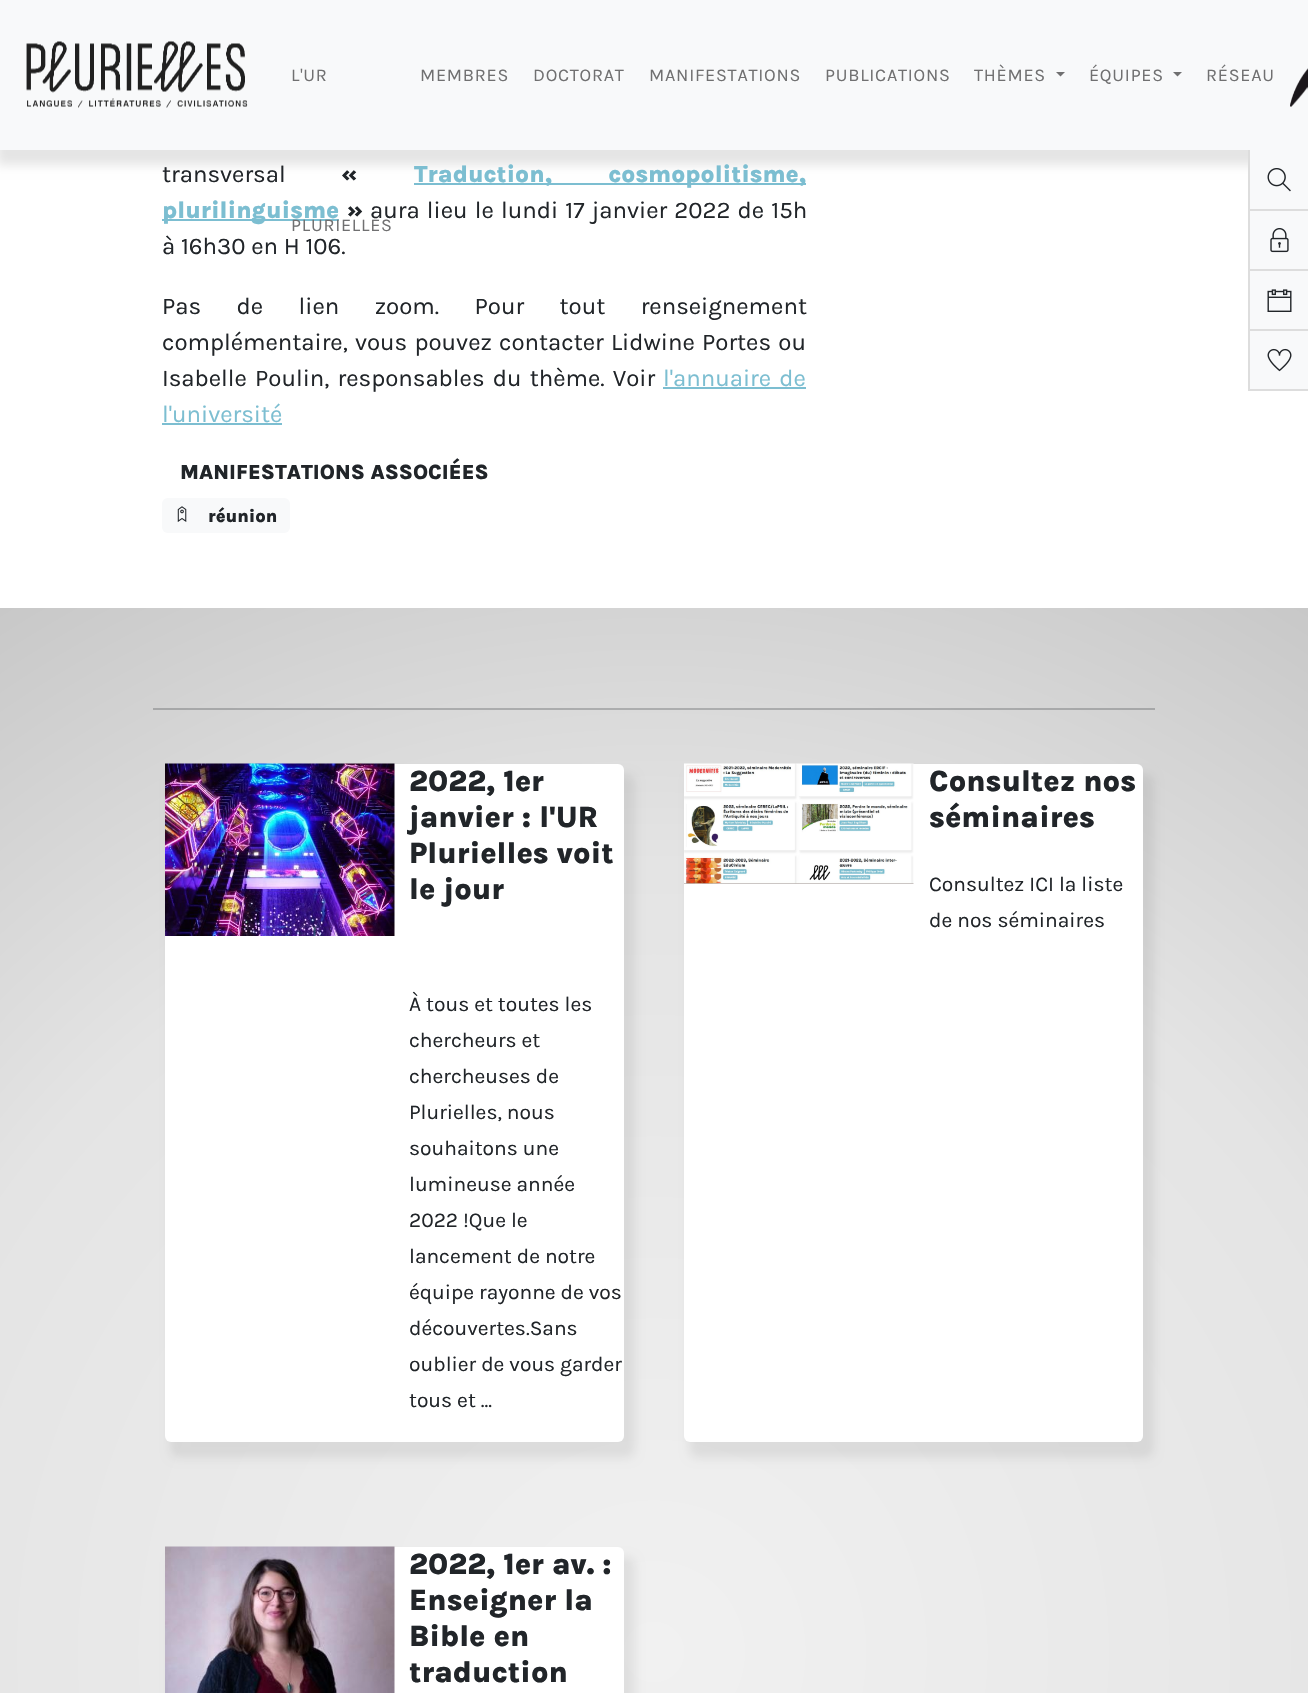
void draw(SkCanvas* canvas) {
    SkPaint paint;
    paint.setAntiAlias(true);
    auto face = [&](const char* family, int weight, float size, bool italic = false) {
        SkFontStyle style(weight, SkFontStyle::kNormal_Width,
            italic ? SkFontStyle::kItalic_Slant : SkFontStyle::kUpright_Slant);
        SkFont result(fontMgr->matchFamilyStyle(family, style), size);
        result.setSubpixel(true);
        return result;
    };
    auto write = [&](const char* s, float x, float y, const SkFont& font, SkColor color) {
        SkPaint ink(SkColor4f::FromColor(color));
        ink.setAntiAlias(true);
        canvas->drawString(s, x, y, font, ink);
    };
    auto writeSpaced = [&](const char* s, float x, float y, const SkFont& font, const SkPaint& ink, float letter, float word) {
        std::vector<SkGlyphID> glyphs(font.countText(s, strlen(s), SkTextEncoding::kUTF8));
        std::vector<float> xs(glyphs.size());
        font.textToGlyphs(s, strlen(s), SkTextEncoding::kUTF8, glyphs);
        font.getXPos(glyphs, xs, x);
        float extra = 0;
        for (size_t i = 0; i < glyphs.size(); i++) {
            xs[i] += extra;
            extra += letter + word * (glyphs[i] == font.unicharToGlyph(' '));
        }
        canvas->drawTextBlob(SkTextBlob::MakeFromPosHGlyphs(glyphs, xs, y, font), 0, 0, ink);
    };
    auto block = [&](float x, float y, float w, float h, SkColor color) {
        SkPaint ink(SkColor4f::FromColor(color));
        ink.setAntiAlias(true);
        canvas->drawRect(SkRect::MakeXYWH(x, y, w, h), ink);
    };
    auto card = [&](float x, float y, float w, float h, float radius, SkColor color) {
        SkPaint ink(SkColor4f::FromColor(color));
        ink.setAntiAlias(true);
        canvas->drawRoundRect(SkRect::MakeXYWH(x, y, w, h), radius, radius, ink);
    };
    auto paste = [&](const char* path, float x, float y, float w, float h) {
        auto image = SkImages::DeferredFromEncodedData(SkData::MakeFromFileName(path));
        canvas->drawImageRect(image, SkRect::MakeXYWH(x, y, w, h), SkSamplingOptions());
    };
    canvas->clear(SK_ColorWHITE);
    paint.setColor(SkColorSetARGB(26, 0, 0, 0));
    paint.setMaskFilter(SkMaskFilter::MakeBlur(kNormal_SkBlurStyle, 5));
    canvas->drawRect(SkRect::MakeXYWH(-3, 9, 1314, 156), paint);
    paint.setMaskFilter(nullptr);
    block(0, 0, 1308, 150, SkColorSetRGB(248, 249, 250));
    paste("pic1.png", 26, 40, 222, 68);
    auto kFont1 = face("Karla", 400, 18);
    paint.setColor(SkColorSetRGB(112, 112, 113));
    writeSpaced("L'UR", 291, 81, kFont1, paint, 0.75f, 0);
    block(162, 219, 177, 2, SkColorSetRGB(124, 190, 209));
    auto kFont2 = face("Karla", 800, 24);
    write("plurilinguisme", 162, 218, kFont2, SkColorSetRGB(124, 190, 209));
    writeSpaced("PLURIELLES", 291, 231, kFont1, paint, 0.75f, 0);
    writeSpaced("MEMBRES", 420, 81, kFont1, paint, 0.75f, 0);
    writeSpaced("DOCTORAT", 533, 81, kFont1, paint, 0.75f, 0);
    writeSpaced("MANIFESTATIONS", 649, 81, kFont1, paint, 0.75f, 0);
    writeSpaced("PUBLICATIONS", 825, 81, kFont1, paint, 0.75f, 0);
    writeSpaced("THÈMES", 974, 81, kFont1, paint, 0.75f, 0);
    canvas->drawPath(SkPathBuilder().moveTo(1056, 72).lineTo(1065, 72).lineTo(1060.5f, 76.5f).close().detach(), paint);
    writeSpaced("ÉQUIPES", 1089, 81, kFont1, paint, 0.75f, 0);
    canvas->drawPath(SkPathBuilder().moveTo(1173, 72).lineTo(1182, 72).lineTo(1177.5f, 76.5f).close().detach(), paint);
    writeSpaced("RÉSEAU", 1206, 81, kFont1, paint, 0.75f, 0);
    paste("pic2.png", 1290, 68, 18, 39);
    auto kFont3 = face("Karla", 400, 24);
    write("transversal", 162, 182, kFont3, SkColorSetRGB(33, 37, 41));
    write("«", 341, 182, kFont2, SkColorSetRGB(33, 37, 41));
    block(414, 183, 392, 2, SkColorSetRGB(124, 190, 209));
    paint.setColor(SkColorSetRGB(124, 190, 209));
    writeSpaced("Traduction, cosmopolitisme,", 414, 182, kFont2, paint, 0, 50);
    write("»", 347, 218, kFont2, SkColorSetRGB(33, 37, 41));
    paint.setColor(SkColorSetRGB(33, 37, 41));
    writeSpaced("aura lieu le lundi 17 janvier 2022 de 15h", 370, 218, kFont3, paint, 0, 1.5f);
    write("à 16h30 en H 106.", 162, 254, kFont3, SkColorSetRGB(33, 37, 41));
    writeSpaced("Pas de lien zoom. Pour tout renseignement", 162, 314, kFont3, paint, 0, 29.75f);
    writeSpaced("complémentaire, vous pouvez contacter Lidwine Portes ou", 162, 350, kFont3, paint, 0, 1.5f);
    writeSpaced("Isabelle Poulin, responsables du thème. Voir", 162, 386, kFont3, paint, 0, 2.5f);
    paint.setColor(SkColorSetRGB(124, 190, 209));
    writeSpaced("l'annuaire de", 663, 386, kFont3, paint, 0, 2.5f);
    block(663, 387, 143, 2, SkColorSetRGB(124, 190, 209));
    write("l'université", 162, 422, kFont3, SkColorSetRGB(124, 190, 209));
    block(162, 423, 120, 2, SkColorSetRGB(124, 190, 209));
    auto kFont4 = face("Karla", 800, 21);
    write("MANIFESTATIONS ASSOCIÉES", 180, 479, kFont4, SkColorSetRGB(33, 37, 41));
    card(162, 498, 128, 35, 6, SkColorSetRGB(248, 249, 250));
    paste("pic3.png", 177, 506, 10, 16);
    auto kFont5 = face("Karla", 800, 18);
    write("réunion", 208, 522, kFont5, SkColorSetRGB(33, 37, 41));
    {
        const SkColor colors[] = {SkColorSetRGB(241, 241, 241), SkColorSetRGB(228, 228, 228), SkColorSetRGB(200, 200, 200)};
        const float stops[] = {0, 0.64f, 1};
        paint.setShader(SkGradientShader::MakeRadial({654, 1652}, 1232, colors, stops, 3, SkTileMode::kClamp));
        paint.setAlpha(255);
    }
    canvas->drawRect(SkRect::MakeXYWH(0, 608, 1308, 1085), paint);
    {
        const SkColor colors[] = {SkColorSetRGB(189, 190, 191), SkColorSetRGB(179, 180, 181), SkColorSetRGB(158, 159, 160)};
        const float stops[] = {0, 0.64f, 1};
        paint.setShader(SkGradientShader::MakeRadial({654, 1652}, 1232, colors, stops, 3, SkTileMode::kClamp));
        paint.setAlpha(255);
    }
    canvas->drawRect(SkRect::MakeXYWH(153, 708, 1002, 2), paint);
    paint.setShader(nullptr);
    paint.setColor(SkColorSetARGB(18, 0, 0, 0));
    paint.setMaskFilter(SkMaskFilter::MakeBlur(kNormal_SkBlurStyle, 5));
    canvas->drawRoundRect(SkRect::MakeXYWH(170, 774, 465, 684), 9, 9, paint);
    paint.setMaskFilter(nullptr);
    card(165, 764, 459, 678, 6, SK_ColorWHITE);
    paste("pic4.png", 165, 763, 230, 173);
    auto kFont6 = face("Karla", 800, 30);
    write("2022, 1er", 409, 791, kFont6, SkColorSetRGB(33, 37, 41));
    write("janvier : l'UR", 409, 827, kFont6, SkColorSetRGB(33, 37, 41));
    write("Plurielles voit", 409, 863, kFont6, SkColorSetRGB(33, 37, 41));
    write("le jour", 409, 899, kFont6, SkColorSetRGB(33, 37, 41));
    auto kFont7 = face("Karla", 400, 21);
    write("À tous et toutes les", 409, 1011, kFont7, SkColorSetRGB(33, 37, 41));
    write("chercheurs et", 409, 1047, kFont7, SkColorSetRGB(33, 37, 41));
    write("chercheuses de", 409, 1083, kFont7, SkColorSetRGB(33, 37, 41));
    write("Plurielles, nous", 409, 1119, kFont7, SkColorSetRGB(33, 37, 41));
    write("souhaitons une", 409, 1155, kFont7, SkColorSetRGB(33, 37, 41));
    write("lumineuse année", 409, 1191, kFont7, SkColorSetRGB(33, 37, 41));
    write("2022 !Que le", 409, 1227, kFont7, SkColorSetRGB(33, 37, 41));
    write("lancement de notre", 409, 1263, kFont7, SkColorSetRGB(33, 37, 41));
    write("équipe rayonne de vos", 409, 1299, kFont7, SkColorSetRGB(33, 37, 41));
    write("découvertes.Sans", 409, 1335, kFont7, SkColorSetRGB(33, 37, 41));
    write("oublier de vous garder", 409, 1371, kFont7, SkColorSetRGB(33, 37, 41));
    write("tous et ...", 409, 1407, kFont7, SkColorSetRGB(33, 37, 41));
    paint.setMaskFilter(SkMaskFilter::MakeBlur(kNormal_SkBlurStyle, 5));
    canvas->drawRoundRect(SkRect::MakeXYWH(689, 774, 465, 684), 9, 9, paint);
    paint.setMaskFilter(nullptr);
    card(684, 764, 459, 678, 6, SK_ColorWHITE);
    paste("pic5.png", 684, 763, 230, 121);
    write("Consultez nos", 929, 791, kFont6, SkColorSetRGB(33, 37, 41));
    write("séminaires", 929, 827, kFont6, SkColorSetRGB(33, 37, 41));
    write("Consultez ICI la liste", 929, 891, kFont7, SkColorSetRGB(33, 37, 41));
    write("de nos séminaires", 929, 927, kFont7, SkColorSetRGB(33, 37, 41));
    paint.setMaskFilter(SkMaskFilter::MakeBlur(kNormal_SkBlurStyle, 5));
    canvas->drawRoundRect(SkRect::MakeXYWH(170, 1557, 465, 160), 9, 9, paint);
    paint.setMaskFilter(nullptr);
    card(165, 1547, 459, 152, 6, SK_ColorWHITE);
    paste("pic6.png", 165, 1546, 230, 147);
    write("2022, 1er av. :", 409, 1574, kFont6, SkColorSetRGB(33, 37, 41));
    write("Enseigner la", 409, 1610, kFont6, SkColorSetRGB(33, 37, 41));
    write("Bible en", 409, 1646, kFont6, SkColorSetRGB(33, 37, 41));
    write("traduction", 409, 1682, kFont6, SkColorSetRGB(33, 37, 41));
    block(1250, 150, 58, 239, SkColorSetRGB(248, 249, 250));
    block(1248, 209, 60, 2, SkColorSetRGB(221, 221, 221));
    block(1248, 150, 2, 60, SkColorSetRGB(221, 221, 221));
    paste("pic7.png", 1267, 168, 24, 24);
    block(1248, 269, 60, 2, SkColorSetRGB(221, 221, 221));
    block(1248, 210, 2, 60, SkColorSetRGB(221, 221, 221));
    paste("pic8.png", 1270, 228, 19, 25);
    block(1248, 329, 60, 2, SkColorSetRGB(221, 221, 221));
    block(1248, 270, 2, 60, SkColorSetRGB(221, 221, 221));
    paste("pic9.png", 1267, 289, 25, 23);
    block(1248, 389, 60, 2, SkColorSetRGB(221, 221, 221));
    block(1248, 330, 2, 60, SkColorSetRGB(221, 221, 221));
    paste("pic10.png", 1267, 348, 25, 24);
}
